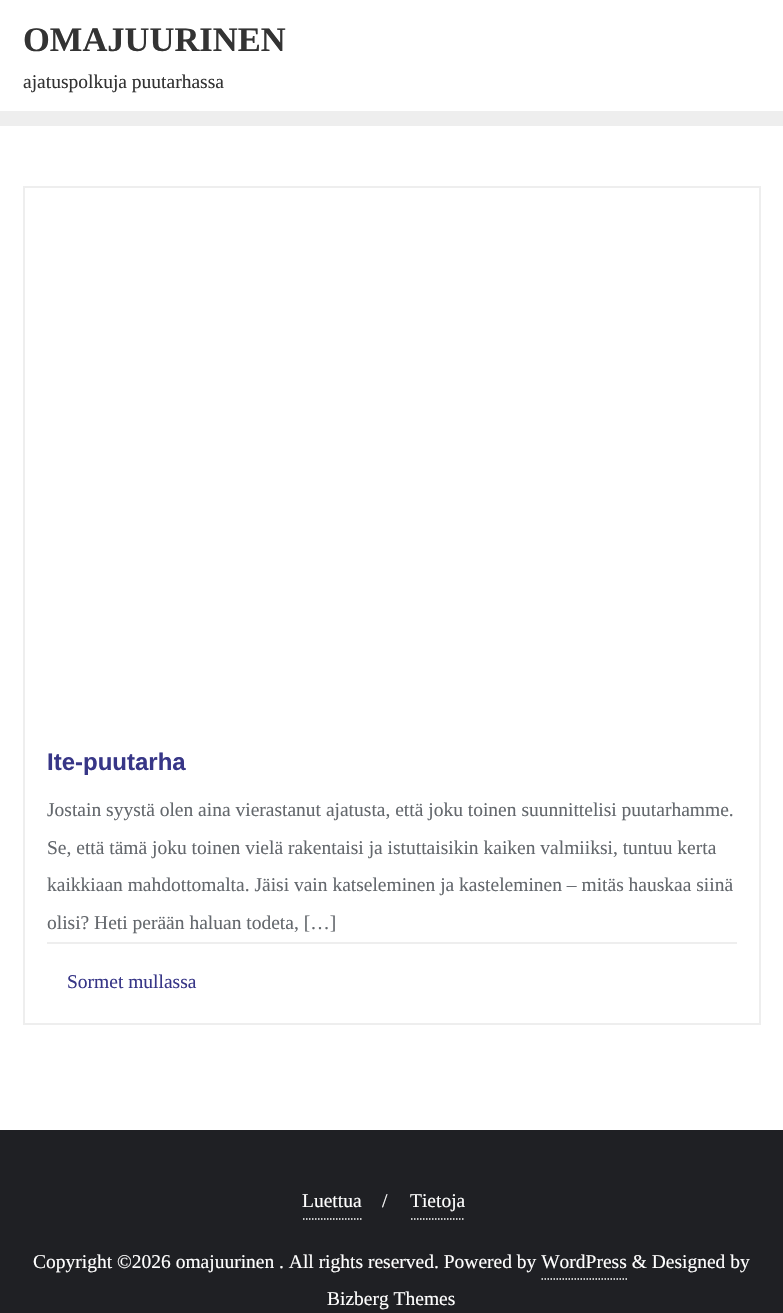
void draw(SkCanvas* canvas) {
    SkPaint paint;
    paint.setAntiAlias(true);
    auto face = [&](const char* family, int weight, float size, bool italic = false) {
        SkFontStyle style(weight, SkFontStyle::kNormal_Width,
            italic ? SkFontStyle::kItalic_Slant : SkFontStyle::kUpright_Slant);
        SkFont result(fontMgr->matchFamilyStyle(family, style), size);
        result.setSubpixel(true);
        return result;
    };
    auto write = [&](const char* s, float x, float y, const SkFont& font, SkColor color) {
        SkPaint ink(SkColor4f::FromColor(color));
        ink.setAntiAlias(true);
        canvas->drawString(s, x, y, font, ink);
    };
    auto block = [&](float x, float y, float w, float h, SkColor color) {
        SkPaint ink(SkColor4f::FromColor(color));
        ink.setAntiAlias(true);
        canvas->drawRect(SkRect::MakeXYWH(x, y, w, h), ink);
    };
    canvas->clear(SK_ColorWHITE);
    block(0, 111, 783, 15, SkColorSetRGB(238, 238, 238));
    auto kFont1 = face("Liberation Serif", 700, 34.5f);
    write("OMAJUURINEN", 23, 51, kFont1, SkColorSetRGB(51, 51, 51));
    auto kFont2 = face("Liberation Serif", 400, 19.5f);
    write("ajatuspolkuja puutarhassa", 23, 88, kFont2, SkColorSetRGB(51, 51, 51));
    paint.setStyle(SkPaint::kStroke_Style);
    paint.setStrokeWidth(2);
    paint.setColor(SkColorSetRGB(238, 238, 238));
    canvas->drawRect(SkRect::MakeXYWH(24, 187, 736, 837), paint);
    auto kFont3 = face("Liberation Sans", 700, 24);
    write("Ite-puutarha", 47, 770, kFont3, SkColorSetRGB(55, 54, 135));
    write("Jostain syystä olen aina vierastanut ajatusta, että joku toinen suunnittelisi puutarhamme.", 47, 816, kFont2, SkColorSetRGB(100, 104, 109));
    write("Se, että tämä joku toinen vielä rakentaisi ja istuttaisikin kaiken valmiiksi, tuntuu kerta", 47, 854, kFont2, SkColorSetRGB(100, 104, 109));
    write("kaikkiaan mahdottomalta. Jäisi vain katseleminen ja kasteleminen – mitäs hauskaa siinä", 47, 891, kFont2, SkColorSetRGB(100, 104, 109));
    write("olisi? Heti perään haluan todeta, […]", 47, 929, kFont2, SkColorSetRGB(100, 104, 109));
    block(47, 942, 690, 2, SkColorSetRGB(238, 238, 238));
    write("Sormet mullassa", 67, 988, kFont2, SkColorSetRGB(55, 54, 135));
    block(0, 1130, 783, 183, SkColorSetRGB(31, 32, 36));
    paint.setStrokeWidth(1.5f);
    paint.setColor(SK_ColorWHITE);
    paint.setPathEffect(SkDashPathEffect::Make({{1.5f, 1.5f}}, 0));
    canvas->drawPath(SkPathBuilder().moveTo(303, 1219).lineTo(361.5f, 1219).detach(), paint);
    paint.setPathEffect(nullptr);
    write("Luettua", 302, 1207, kFont2, SK_ColorWHITE);
    write("/", 382, 1207, kFont2, SK_ColorWHITE);
    paint.setPathEffect(SkDashPathEffect::Make({{1.5f, 1.5f}}, 0));
    canvas->drawPath(SkPathBuilder().moveTo(411, 1219).lineTo(465, 1219).detach(), paint);
    paint.setPathEffect(nullptr);
    write("Tietoja", 410, 1207, kFont2, SK_ColorWHITE);
    write("Copyright ©2026 omajuurinen . All rights reserved. Powered by WordPress & Designed by", 33, 1268, kFont2, SK_ColorWHITE);
    paint.setPathEffect(SkDashPathEffect::Make({{1.5f, 1.5f}}, 0));
    canvas->drawPath(SkPathBuilder().moveTo(541.5f, 1279).lineTo(627, 1279).detach(), paint);
    paint.setPathEffect(nullptr);
    write("Bizberg Themes", 327, 1305, kFont2, SK_ColorWHITE);
}
